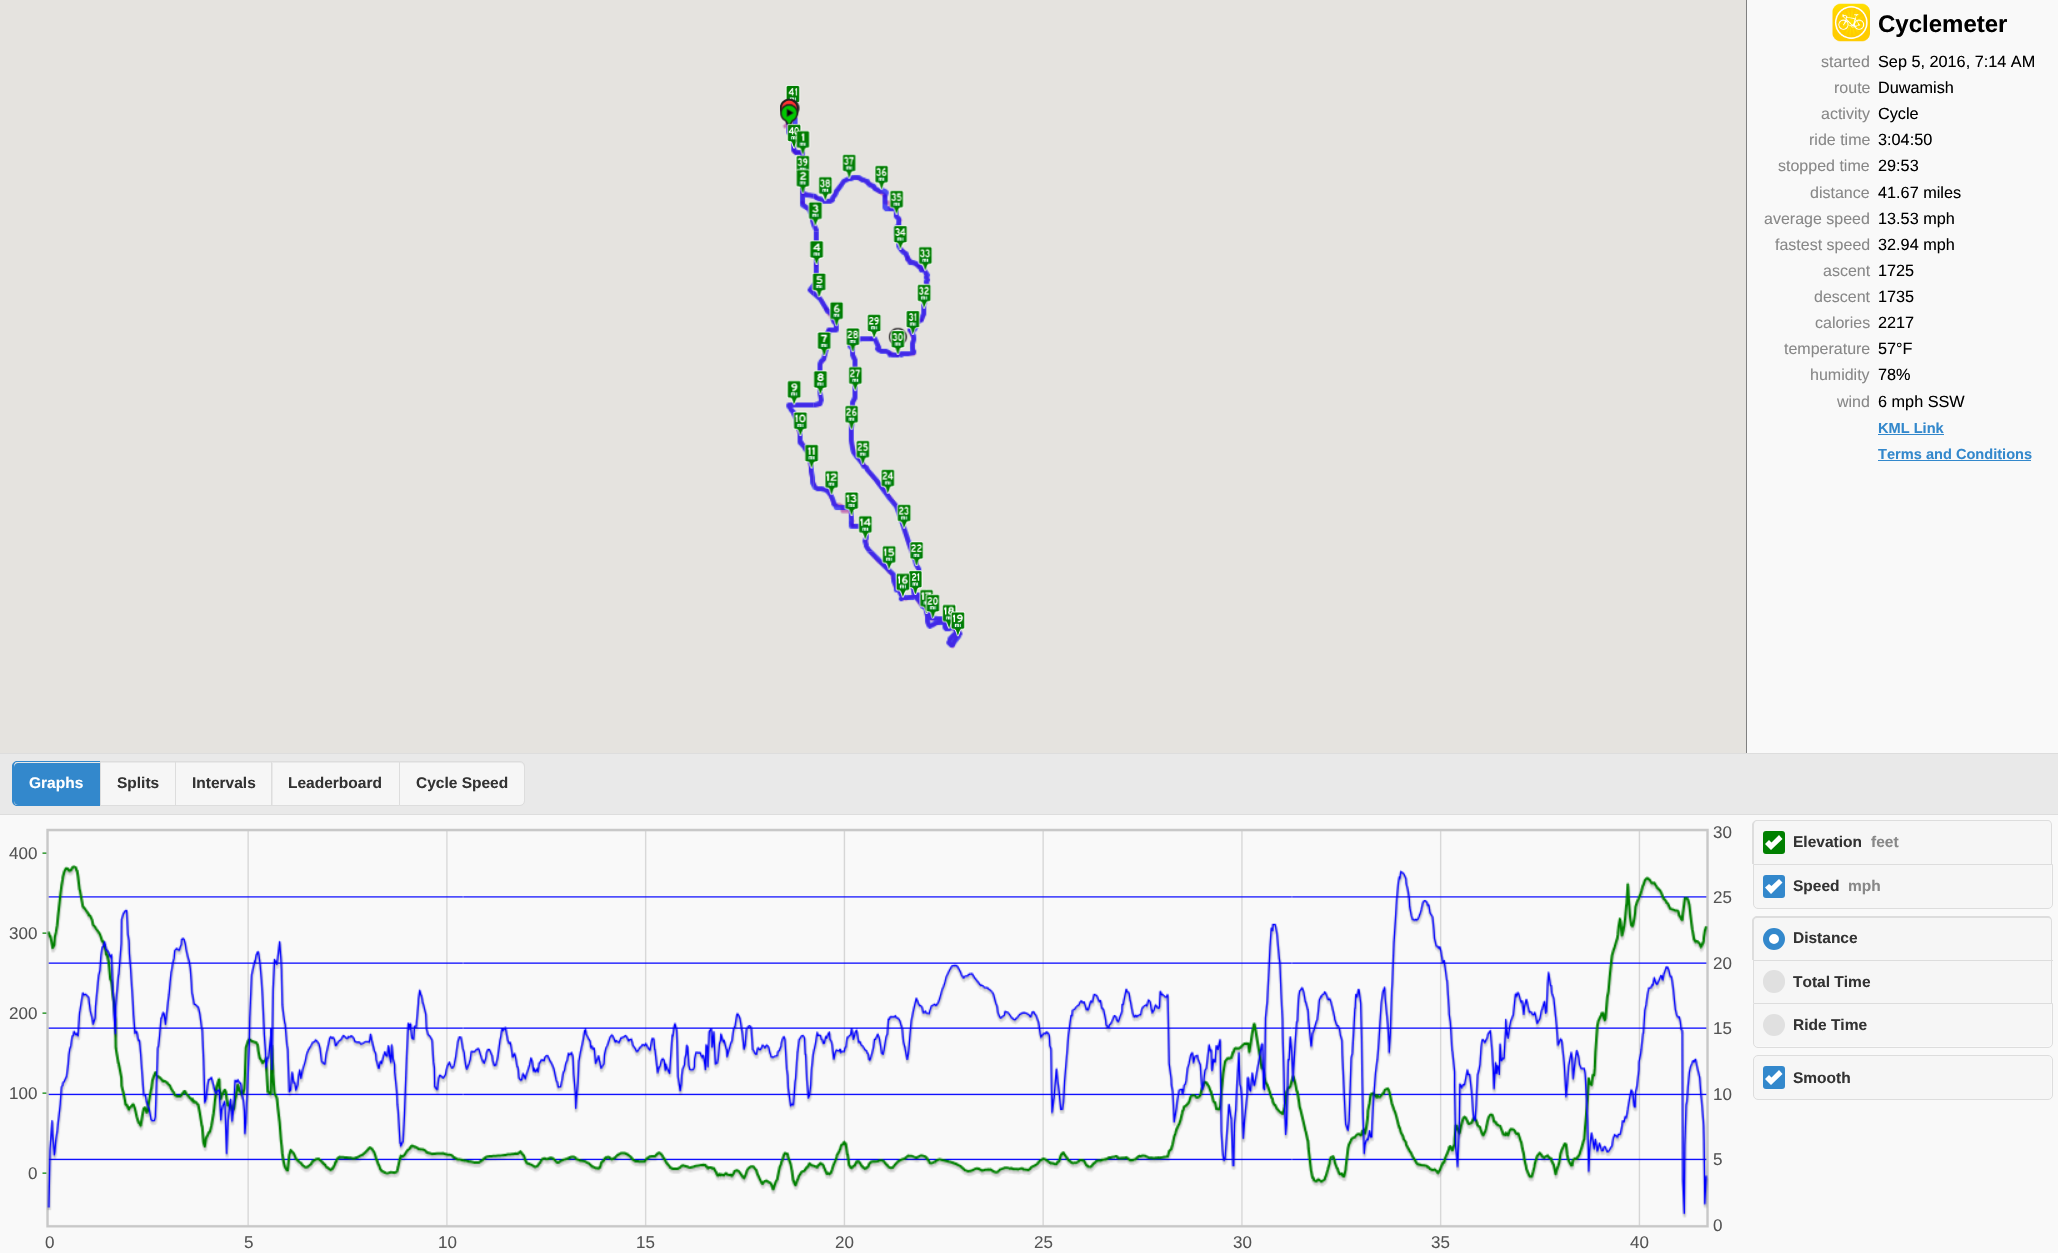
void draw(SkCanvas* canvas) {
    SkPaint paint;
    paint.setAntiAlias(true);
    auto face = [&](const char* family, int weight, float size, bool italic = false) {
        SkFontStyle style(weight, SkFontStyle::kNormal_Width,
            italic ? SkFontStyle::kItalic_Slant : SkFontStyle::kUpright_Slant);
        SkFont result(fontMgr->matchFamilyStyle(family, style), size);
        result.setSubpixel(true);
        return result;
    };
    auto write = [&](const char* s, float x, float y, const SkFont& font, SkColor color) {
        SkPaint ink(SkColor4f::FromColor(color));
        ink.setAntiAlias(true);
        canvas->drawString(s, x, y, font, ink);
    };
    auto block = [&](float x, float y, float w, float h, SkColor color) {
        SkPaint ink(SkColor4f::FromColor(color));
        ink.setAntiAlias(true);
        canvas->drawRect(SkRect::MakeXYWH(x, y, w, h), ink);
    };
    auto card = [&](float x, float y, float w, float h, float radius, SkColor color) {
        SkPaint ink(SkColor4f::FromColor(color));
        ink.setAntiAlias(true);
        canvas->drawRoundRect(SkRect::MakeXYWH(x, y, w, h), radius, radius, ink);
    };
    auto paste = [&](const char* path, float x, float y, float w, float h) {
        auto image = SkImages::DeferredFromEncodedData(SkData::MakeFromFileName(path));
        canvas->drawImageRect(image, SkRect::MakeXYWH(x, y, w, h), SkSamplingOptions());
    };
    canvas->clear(SkColorSetRGB(249, 249, 249));
    block(0, 0, 1746, 753, SkColorSetRGB(229, 227, 223));
    paste("pic1.png", 785, 85, 16, 19);
    paste("pic48.png", 782, 116, 32, 115);
    paste("pic4.png", 781, 98, 19, 26);
    paste("pic5.png", 780, 99, 19, 24);
    paste("pic2.png", 780, 98, 19, 25);
    paste("pic3.png", 780, 98, 18, 15);
    paste("pic6.png", 780, 103, 19, 25);
    paste("pic7.png", 786, 123, 16, 26);
    paste("pic8.png", 795, 129, 16, 27);
    paste("pic9.png", 795, 154, 15, 20);
    paste("pic51.png", 813, 231, 118, 321);
    paste("pic49.png", 813, 174, 90, 58);
    paste("pic10.png", 841, 154, 16, 25);
    paste("pic11.png", 874, 164, 15, 27);
    paste("pic12.png", 796, 168, 15, 26);
    paste("pic14.png", 818, 176, 16, 26);
    paste("pic13.png", 807, 200, 17, 27);
    paste("pic15.png", 888, 190, 17, 26);
    paste("pic16.png", 893, 225, 15, 25);
    paste("pic17.png", 809, 240, 16, 25);
    paste("pic18.png", 917, 246, 16, 26);
    paste("pic50.png", 786, 282, 28, 208);
    paste("pic19.png", 811, 272, 16, 26);
    paste("pic20.png", 916, 283, 16, 26);
    paste("pic21.png", 829, 301, 15, 26);
    paste("pic22.png", 846, 327, 15, 26);
    paste("pic23.png", 866, 314, 16, 25);
    paste("pic25.png", 905, 310, 16, 25);
    paste("pic24.png", 888, 327, 20, 26);
    paste("pic26.png", 816, 331, 16, 26);
    paste("pic27.png", 890, 330, 16, 25);
    paste("pic28.png", 786, 380, 16, 26);
    paste("pic29.png", 813, 370, 15, 25);
    paste("pic30.png", 848, 365, 15, 27);
    paste("pic31.png", 792, 411, 16, 26);
    paste("pic32.png", 844, 404, 15, 27);
    paste("pic33.png", 803, 444, 17, 25);
    paste("pic34.png", 855, 439, 15, 27);
    paste("pic35.png", 824, 470, 15, 26);
    paste("pic36.png", 880, 469, 15, 25);
    paste("pic37.png", 843, 491, 17, 26);
    paste("pic38.png", 857, 515, 16, 26);
    paste("pic39.png", 896, 503, 16, 26);
    paste("pic52.png", 866, 551, 97, 98);
    paste("pic40.png", 881, 545, 16, 26);
    paste("pic41.png", 909, 541, 15, 26);
    paste("pic43.png", 908, 570, 15, 25);
    paste("pic42.png", 895, 572, 16, 26);
    paste("pic44.png", 919, 588, 15, 26);
    paste("pic45.png", 925, 593, 15, 26);
    paste("pic46.png", 941, 603, 16, 27);
    paste("pic47.png", 950, 611, 16, 26);
    block(1746, 0, 1, 753, SkColorSetRGB(128, 128, 128));
    paste("pic53.png", 1832, 3, 38, 39);
    auto kFont1 = face("Liberation Sans", 700, 24);
    write("Cyclemeter", 1878, 32, kFont1, SK_ColorBLACK);
    auto kFont2 = face("Liberation Sans", 400, 16);
    write("started", 1821, 67, kFont2, SkColorSetRGB(136, 136, 136));
    auto kFont3 = face("Liberation Sans", 400, 16.25f);
    write("Sep 5, 2016, 7:14 AM", 1878, 67, kFont3, SK_ColorBLACK);
    write("route", 1834, 93, kFont2, SkColorSetRGB(136, 136, 136));
    write("Duwamish", 1878, 93, kFont3, SK_ColorBLACK);
    write("activity", 1821, 119, kFont2, SkColorSetRGB(136, 136, 136));
    write("Cycle", 1878, 119, kFont3, SK_ColorBLACK);
    write("ride time", 1809, 145, kFont2, SkColorSetRGB(136, 136, 136));
    write("3:04:50", 1878, 145, kFont3, SK_ColorBLACK);
    write("stopped time", 1778, 171, kFont2, SkColorSetRGB(136, 136, 136));
    write("29:53", 1878, 171, kFont3, SK_ColorBLACK);
    write("distance", 1810, 198, kFont2, SkColorSetRGB(136, 136, 136));
    write("41.67 miles", 1878, 198, kFont3, SK_ColorBLACK);
    write("average speed", 1764, 224, kFont2, SkColorSetRGB(136, 136, 136));
    write("13.53 mph", 1878, 224, kFont3, SK_ColorBLACK);
    write("fastest speed", 1775, 250, kFont2, SkColorSetRGB(136, 136, 136));
    write("32.94 mph", 1878, 250, kFont3, SK_ColorBLACK);
    write("ascent", 1823, 276, kFont2, SkColorSetRGB(136, 136, 136));
    write("1725", 1878, 276, kFont3, SK_ColorBLACK);
    write("descent", 1814, 302, kFont2, SkColorSetRGB(136, 136, 136));
    write("1735", 1878, 302, kFont3, SK_ColorBLACK);
    write("calories", 1815, 328, kFont2, SkColorSetRGB(136, 136, 136));
    write("2217", 1878, 328, kFont3, SK_ColorBLACK);
    write("temperature", 1784, 354, kFont2, SkColorSetRGB(136, 136, 136));
    write("57°F", 1878, 354, kFont3, SK_ColorBLACK);
    write("humidity", 1810, 380, kFont2, SkColorSetRGB(136, 136, 136));
    write("78%", 1878, 380, kFont3, SK_ColorBLACK);
    write("wind", 1837, 407, kFont2, SkColorSetRGB(136, 136, 136));
    write("6 mph SSW", 1878, 407, kFont3, SK_ColorBLACK);
    auto kFont4 = face("Liberation Sans", 700, 14.6f);
    write("KML Link", 1878, 433, kFont4, SkColorSetRGB(51, 136, 204));
    block(1878, 434, 66, 1, SkColorSetRGB(51, 136, 204));
    write("Terms and Conditions", 1878, 459, kFont4, SkColorSetRGB(51, 136, 204));
    block(1878, 460, 153, 1, SkColorSetRGB(51, 136, 204));
    block(0, 753, 2058, 1, SkColorSetRGB(221, 221, 221));
    block(0, 754, 2058, 60, SkColorSetRGB(233, 233, 233));
    block(0, 814, 2058, 1, SkColorSetRGB(221, 221, 221));
    paint.setColor(SkColorSetRGB(51, 136, 204));
    canvas->drawPath(SkPathBuilder().moveTo(18, 763).lineTo(100, 763).lineTo(100, 805).lineTo(18, 805).cubicTo(16, 805, 14, 803, 14, 801).lineTo(14, 767).cubicTo(14, 765, 16, 763, 18, 763).close().detach(), paint);
    canvas->drawPath(SkPathBuilder(SkPathFillType::kEvenOdd).moveTo(17, 761).lineTo(100, 761).lineTo(100, 806).lineTo(17, 806).cubicTo(15, 806, 12, 804, 12, 801).lineTo(12, 766).cubicTo(12, 763, 15, 761, 17, 761).close().moveTo(17, 762).lineTo(100, 762).lineTo(100, 805).lineTo(17, 805).cubicTo(15, 805, 14, 803, 14, 801).lineTo(14, 766).cubicTo(14, 764, 15, 762, 17, 762).close().detach(), paint);
    auto kFont5 = face("Liberation Sans", 700, 15.5f);
    write("Graphs", 29, 788, kFont5, SK_ColorWHITE);
    block(101, 763, 74, 42, SkColorSetRGB(246, 246, 246));
    block(100, 761, 299, 1, SkColorSetRGB(221, 221, 221));
    block(100, 805, 299, 1, SkColorSetRGB(221, 221, 221));
    block(100, 761, 1, 45, SkColorSetRGB(221, 221, 221));
    write("Splits", 117, 788, kFont5, SkColorSetRGB(51, 51, 51));
    block(176, 763, 95, 42, SkColorSetRGB(246, 246, 246));
    block(175, 761, 1, 45, SkColorSetRGB(221, 221, 221));
    write("Intervals", 192, 788, kFont5, SkColorSetRGB(51, 51, 51));
    block(273, 763, 126, 42, SkColorSetRGB(246, 246, 246));
    block(271, 761, 1, 45, SkColorSetRGB(221, 221, 221));
    write("Leaderboard", 288, 788, kFont5, SkColorSetRGB(51, 51, 51));
    paint.setColor(SkColorSetRGB(246, 246, 246));
    canvas->drawPath(SkPathBuilder().moveTo(400, 763).lineTo(520, 763).cubicTo(522, 763, 524, 765, 524, 767).lineTo(524, 801).cubicTo(524, 803, 522, 805, 520, 805).lineTo(400, 805).close().detach(), paint);
    paint.setStyle(SkPaint::kStroke_Style);
    paint.setStrokeWidth(1);
    paint.setColor(SkColorSetRGB(221, 221, 221));
    canvas->drawPath(SkPathBuilder().moveTo(399.5f, 761.5f).lineTo(520, 761.5f).cubicTo(522.5f, 761.5f, 524.5f, 763.5f, 524.5f, 766).lineTo(524.5f, 801).cubicTo(524.5f, 803.5f, 522.5f, 805.5f, 520, 805.5f).lineTo(399.5f, 805.5f).close().detach(), paint);
    write("Cycle Speed", 416, 788, kFont5, SkColorSetRGB(51, 51, 51));
    auto kFont6 = face("Liberation Sans", 400, 17);
    write("400", 9, 859, kFont6, SkColorSetRGB(84, 84, 84));
    write("300", 9, 939, kFont6, SkColorSetRGB(84, 84, 84));
    write("200", 9, 1019, kFont6, SkColorSetRGB(84, 84, 84));
    write("100", 9, 1099, kFont6, SkColorSetRGB(84, 84, 84));
    write("0", 28, 1179, kFont6, SkColorSetRGB(84, 84, 84));
    write("30", 1713, 838, kFont6, SkColorSetRGB(84, 84, 84));
    write("25", 1713, 903, kFont6, SkColorSetRGB(84, 84, 84));
    write("20", 1713, 969, kFont6, SkColorSetRGB(84, 84, 84));
    write("15", 1713, 1034, kFont6, SkColorSetRGB(84, 84, 84));
    write("10", 1713, 1100, kFont6, SkColorSetRGB(84, 84, 84));
    write("5", 1713, 1165, kFont6, SkColorSetRGB(84, 84, 84));
    write("0", 1713, 1231, kFont6, SkColorSetRGB(84, 84, 84));
    write("0", 45, 1248, kFont6, SkColorSetRGB(84, 84, 84));
    write("5", 244, 1248, kFont6, SkColorSetRGB(84, 84, 84));
    write("10", 438, 1248, kFont6, SkColorSetRGB(84, 84, 84));
    write("15", 636, 1248, kFont6, SkColorSetRGB(84, 84, 84));
    write("20", 835, 1248, kFont6, SkColorSetRGB(84, 84, 84));
    write("25", 1034, 1248, kFont6, SkColorSetRGB(84, 84, 84));
    write("30", 1233, 1248, kFont6, SkColorSetRGB(84, 84, 84));
    write("35", 1431, 1248, kFont6, SkColorSetRGB(84, 84, 84));
    write("40", 1630, 1248, kFont6, SkColorSetRGB(84, 84, 84));
    paste("pic54.png", 42, 828, 1667, 400);
    paint.setStyle(SkPaint::kFill_Style);
    paint.setColor(SkColorSetRGB(246, 246, 246));
    canvas->drawPath(SkPathBuilder().moveTo(1758, 821).lineTo(2047, 821).cubicTo(2049, 821, 2051, 823, 2051, 825).lineTo(2051, 864).lineTo(1754, 864).lineTo(1754, 825).cubicTo(1754, 823, 1756, 821, 1758, 821).close().detach(), paint);
    paint.setColor(SkColorSetRGB(221, 221, 221));
    canvas->drawPath(SkPathBuilder(SkPathFillType::kEvenOdd).moveTo(1757, 820).lineTo(2048, 820).cubicTo(2050, 820, 2052, 822, 2052, 825).lineTo(2052, 864).lineTo(1752, 864).lineTo(1752, 825).cubicTo(1752, 822, 1755, 820, 1757, 820).close().moveTo(1757, 821).lineTo(2048, 821).cubicTo(2050, 821, 2051, 823, 2051, 825).lineTo(2051, 864).lineTo(1754, 864).lineTo(1754, 825).cubicTo(1754, 823, 1755, 821, 1757, 821).close().detach(), paint);
    card(1763, 831, 22, 23, 3, SkColorSetRGB(0, 128, 0));
    paint.setColor(SK_ColorWHITE);
    canvas->drawPath(SkPathBuilder().moveTo(1782.5f, 839).lineTo(1779, 835).lineTo(1771.5f, 842.5f).lineTo(1769, 840).lineTo(1765, 844).lineTo(1771, 850).close().detach(), paint);
    write("Elevation", 1793, 847, kFont5, SkColorSetRGB(51, 51, 51));
    write("feet", 1871, 847, kFont5, SkColorSetRGB(136, 136, 136));
    paint.setColor(SkColorSetRGB(246, 246, 246));
    canvas->drawPath(SkPathBuilder().moveTo(1754, 865).lineTo(2051, 865).lineTo(2051, 904).cubicTo(2051, 906, 2049, 908, 2047, 908).lineTo(1758, 908).cubicTo(1756, 908, 1754, 906, 1754, 904).close().detach(), paint);
    paint.setStyle(SkPaint::kStroke_Style);
    paint.setColor(SkColorSetRGB(221, 221, 221));
    canvas->drawPath(SkPathBuilder().moveTo(1753.5f, 864.5f).lineTo(2052.5f, 864.5f).lineTo(2052.5f, 904).cubicTo(2052.5f, 906.5f, 2050.5f, 908.5f, 2048, 908.5f).lineTo(1758, 908.5f).cubicTo(1755.5f, 908.5f, 1753.5f, 906.5f, 1753.5f, 904).close().detach(), paint);
    card(1763, 875, 22, 23, 3, SkColorSetRGB(51, 136, 204));
    paint.setStyle(SkPaint::kFill_Style);
    paint.setColor(SK_ColorWHITE);
    canvas->drawPath(SkPathBuilder().moveTo(1782.5f, 882.5f).lineTo(1779, 879).lineTo(1771.5f, 886).lineTo(1769, 884).lineTo(1765, 887.5f).lineTo(1771, 894).close().detach(), paint);
    write("Speed", 1793, 891, kFont5, SkColorSetRGB(51, 51, 51));
    write("mph", 1848, 891, kFont5, SkColorSetRGB(136, 136, 136));
    paint.setColor(SkColorSetRGB(246, 246, 246));
    canvas->drawPath(SkPathBuilder().moveTo(1758, 918).lineTo(2047, 918).cubicTo(2049, 918, 2051, 920, 2051, 922).lineTo(2051, 960).lineTo(1754, 960).lineTo(1754, 922).cubicTo(1754, 920, 1756, 918, 1758, 918).close().detach(), paint);
    paint.setColor(SkColorSetRGB(221, 221, 221));
    canvas->drawPath(SkPathBuilder(SkPathFillType::kEvenOdd).moveTo(1757, 916).lineTo(2048, 916).cubicTo(2050, 916, 2052, 918, 2052, 921).lineTo(2052, 960).lineTo(1752, 960).lineTo(1752, 921).cubicTo(1752, 918, 1755, 916, 1757, 916).close().moveTo(1757, 918).lineTo(2048, 918).cubicTo(2050, 918, 2051, 919, 2051, 921).lineTo(2051, 960).lineTo(1754, 960).lineTo(1754, 921).cubicTo(1754, 919, 1755, 918, 1757, 918).close().detach(), paint);
    paint.setColor(SK_ColorWHITE);
    canvas->drawCircle(1774, 939, 8, paint);
    paint.setStyle(SkPaint::kStroke_Style);
    paint.setStrokeWidth(6);
    paint.setColor(SkColorSetRGB(51, 136, 204));
    canvas->drawCircle(1774, 939, 8, paint);
    write("Distance", 1793, 943, kFont5, SkColorSetRGB(51, 51, 51));
    block(1754, 961, 297, 42, SkColorSetRGB(246, 246, 246));
    block(1753, 960, 300, 1, SkColorSetRGB(221, 221, 221));
    block(2051, 960, 1, 43, SkColorSetRGB(221, 221, 221));
    block(1753, 960, 1, 43, SkColorSetRGB(221, 221, 221));
    card(1763, 970, 22, 23, 11, SkColorSetRGB(224, 224, 224));
    write("Total Time", 1793, 987, kFont5, SkColorSetRGB(51, 51, 51));
    paint.setStyle(SkPaint::kFill_Style);
    paint.setColor(SkColorSetRGB(246, 246, 246));
    canvas->drawPath(SkPathBuilder().moveTo(1754, 1004).lineTo(2051, 1004).lineTo(2051, 1042).cubicTo(2051, 1044, 2049, 1046, 2047, 1046).lineTo(1758, 1046).cubicTo(1756, 1046, 1754, 1044, 1754, 1042).close().detach(), paint);
    paint.setStyle(SkPaint::kStroke_Style);
    paint.setStrokeWidth(1);
    paint.setColor(SkColorSetRGB(221, 221, 221));
    canvas->drawPath(SkPathBuilder().moveTo(1753.5f, 1003.5f).lineTo(2052.5f, 1003.5f).lineTo(2052.5f, 1043).cubicTo(2052.5f, 1045.5f, 2050.5f, 1047.5f, 2048, 1047.5f).lineTo(1758, 1047.5f).cubicTo(1755.5f, 1047.5f, 1753.5f, 1045.5f, 1753.5f, 1043).close().detach(), paint);
    paint.setStyle(SkPaint::kFill_Style);
    paint.setColor(SkColorSetRGB(224, 224, 224));
    canvas->drawCircle(1774, 1025, 11, paint);
    write("Ride Time", 1793, 1030, kFont5, SkColorSetRGB(51, 51, 51));
    card(1754, 1056, 297, 43, 4, SkColorSetRGB(246, 246, 246));
    paint.setStyle(SkPaint::kStroke_Style);
    paint.setColor(SkColorSetRGB(221, 221, 221));
    canvas->drawRoundRect(SkRect::MakeXYWH(1753.5f, 1055.5f, 299, 44), 4.5f, 4.5f, paint);
    card(1763, 1066, 22, 23, 3, SkColorSetRGB(51, 136, 204));
    paint.setStyle(SkPaint::kFill_Style);
    paint.setColor(SK_ColorWHITE);
    canvas->drawPath(SkPathBuilder().moveTo(1782.5f, 1074).lineTo(1779, 1070).lineTo(1771.5f, 1077.5f).lineTo(1769, 1075).lineTo(1765, 1079).lineTo(1771, 1085).close().detach(), paint);
    write("Smooth", 1793, 1083, kFont5, SkColorSetRGB(51, 51, 51));
}
